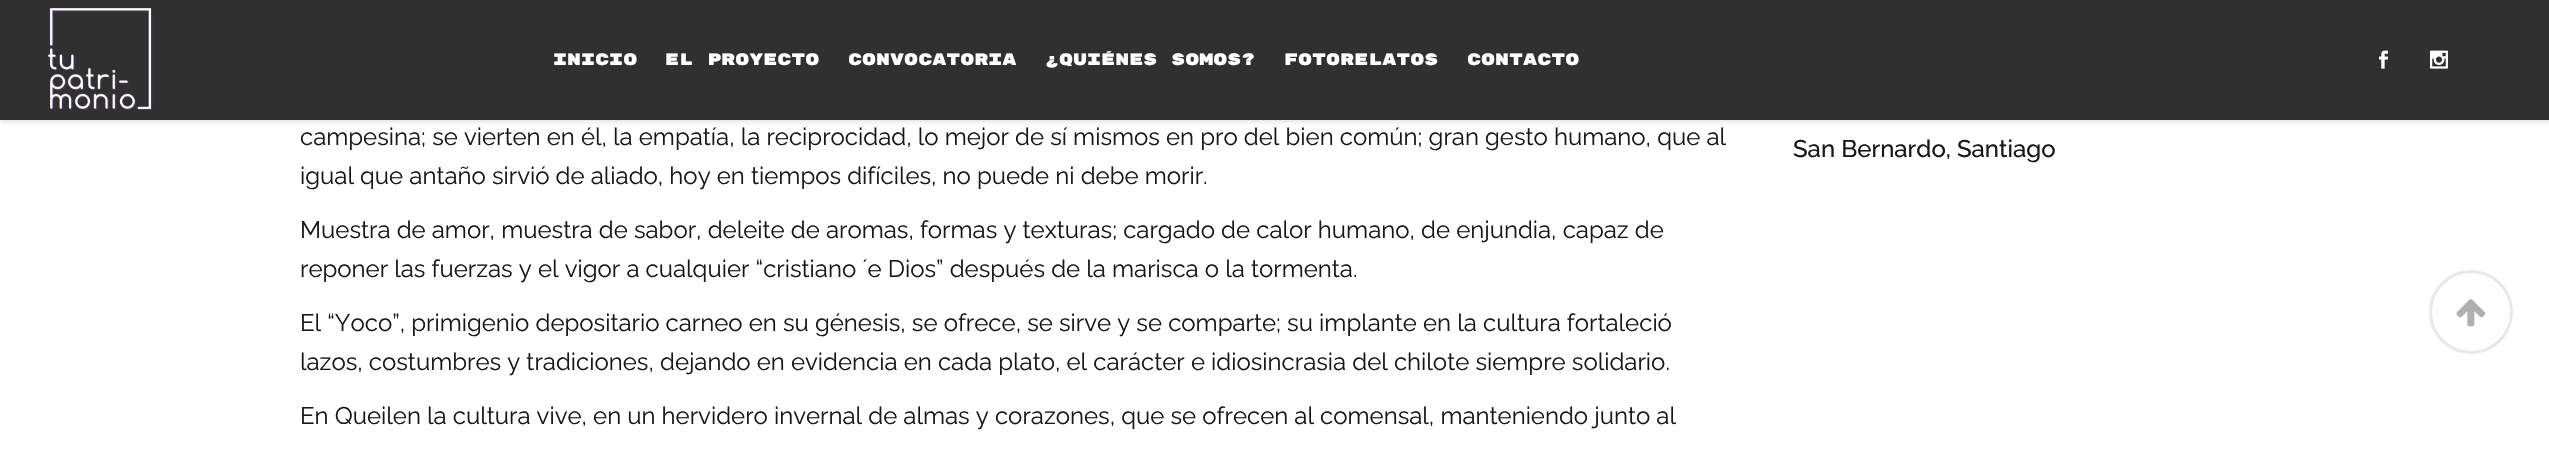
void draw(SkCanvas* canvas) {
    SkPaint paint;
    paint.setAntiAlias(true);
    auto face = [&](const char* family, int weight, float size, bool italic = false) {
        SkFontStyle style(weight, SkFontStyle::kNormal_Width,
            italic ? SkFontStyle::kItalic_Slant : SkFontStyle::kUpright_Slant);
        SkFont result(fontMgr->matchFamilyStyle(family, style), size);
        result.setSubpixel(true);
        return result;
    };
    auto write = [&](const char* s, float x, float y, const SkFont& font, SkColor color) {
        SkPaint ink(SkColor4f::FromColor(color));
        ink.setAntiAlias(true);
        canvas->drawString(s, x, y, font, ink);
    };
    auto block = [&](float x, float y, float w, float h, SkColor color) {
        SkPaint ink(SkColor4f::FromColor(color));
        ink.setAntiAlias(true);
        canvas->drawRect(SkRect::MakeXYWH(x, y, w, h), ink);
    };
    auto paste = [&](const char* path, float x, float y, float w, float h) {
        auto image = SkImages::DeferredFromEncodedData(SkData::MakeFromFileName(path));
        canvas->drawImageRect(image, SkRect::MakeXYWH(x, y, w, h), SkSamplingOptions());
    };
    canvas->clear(SK_ColorWHITE);
    paint.setColor(SkColorSetARGB(28, 0, 0, 0));
    paint.setMaskFilter(SkMaskFilter::MakeBlur(kNormal_SkBlurStyle, 2));
    canvas->drawRect(SkRect::MakeXYWH(0, 2, 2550, 120), paint);
    paint.setMaskFilter(nullptr);
    block(0, 0, 2549, 120, SkColorSetRGB(48, 48, 48));
    paste("pic1.png", 48, 8, 105, 103);
    auto kFont1 = face("Rubik Mono One", 400, 16.5f);
    write("INICIO", 553, 65, kFont1, SK_ColorWHITE);
    write("EL PROYECTO", 665, 65, kFont1, SK_ColorWHITE);
    write("CONVOCATORIA", 848, 65, kFont1, SK_ColorWHITE);
    write("¿QUIÉNES SOMOS?", 1045, 65, kFont1, SK_ColorWHITE);
    write("FOTORELATOS", 1284, 65, kFont1, SK_ColorWHITE);
    write("CONTACTO", 1467, 65, kFont1, SK_ColorWHITE);
    paste("pic2.png", 2379, 50, 9, 19);
    paste("pic3.png", 2430, 50, 18, 19);
    auto kFont2 = face("Raleway", 400, 24);
    write("campesina; se vierten en él, la empatía, la reciprocidad, lo mejor de sí mismos en pro del bien común; gran gesto humano, que al", 300, 145, kFont2, SkColorSetRGB(23, 23, 23));
    write("igual que antaño sirvió de aliado, hoy en tiempos difíciles, no puede ni debe morir.", 300, 184, kFont2, SkColorSetRGB(23, 23, 23));
    write("Muestra de amor, muestra de sabor, deleite de aromas, formas y texturas; cargado de calor humano, de enjundia, capaz de", 300, 238, kFont2, SkColorSetRGB(23, 23, 23));
    write("reponer las fuerzas y el vigor a cualquier “cristiano ´e Dios” después de la marisca o la tormenta.", 300, 277, kFont2, SkColorSetRGB(23, 23, 23));
    write("El “Yoco”, primigenio depositario carneo en su génesis, se ofrece, se sirve y se comparte; su implante en la cultura fortaleció", 300, 331, kFont2, SkColorSetRGB(23, 23, 23));
    write("lazos, costumbres y tradiciones, dejando en evidencia en cada plato, el carácter e idiosincrasia del chilote siempre solidario.", 300, 370, kFont2, SkColorSetRGB(23, 23, 23));
    write("En Queilen la cultura vive, en un hervidero invernal de almas y corazones, que se ofrecen al comensal, manteniendo junto al", 300, 424, kFont2, SkColorSetRGB(23, 23, 23));
    auto kFont3 = face("Raleway", 500, 24);
    write("San Bernardo, Santiago", 1793, 157, kFont3, SkColorSetRGB(23, 23, 23));
    paint.setStyle(SkPaint::kStroke_Style);
    paint.setStrokeWidth(3);
    paint.setColor(SkColorSetRGB(232, 232, 232));
    canvas->drawCircle(2471, 312, 40.5f, paint);
    paste("pic4.png", 2456, 299, 30, 28);
}
